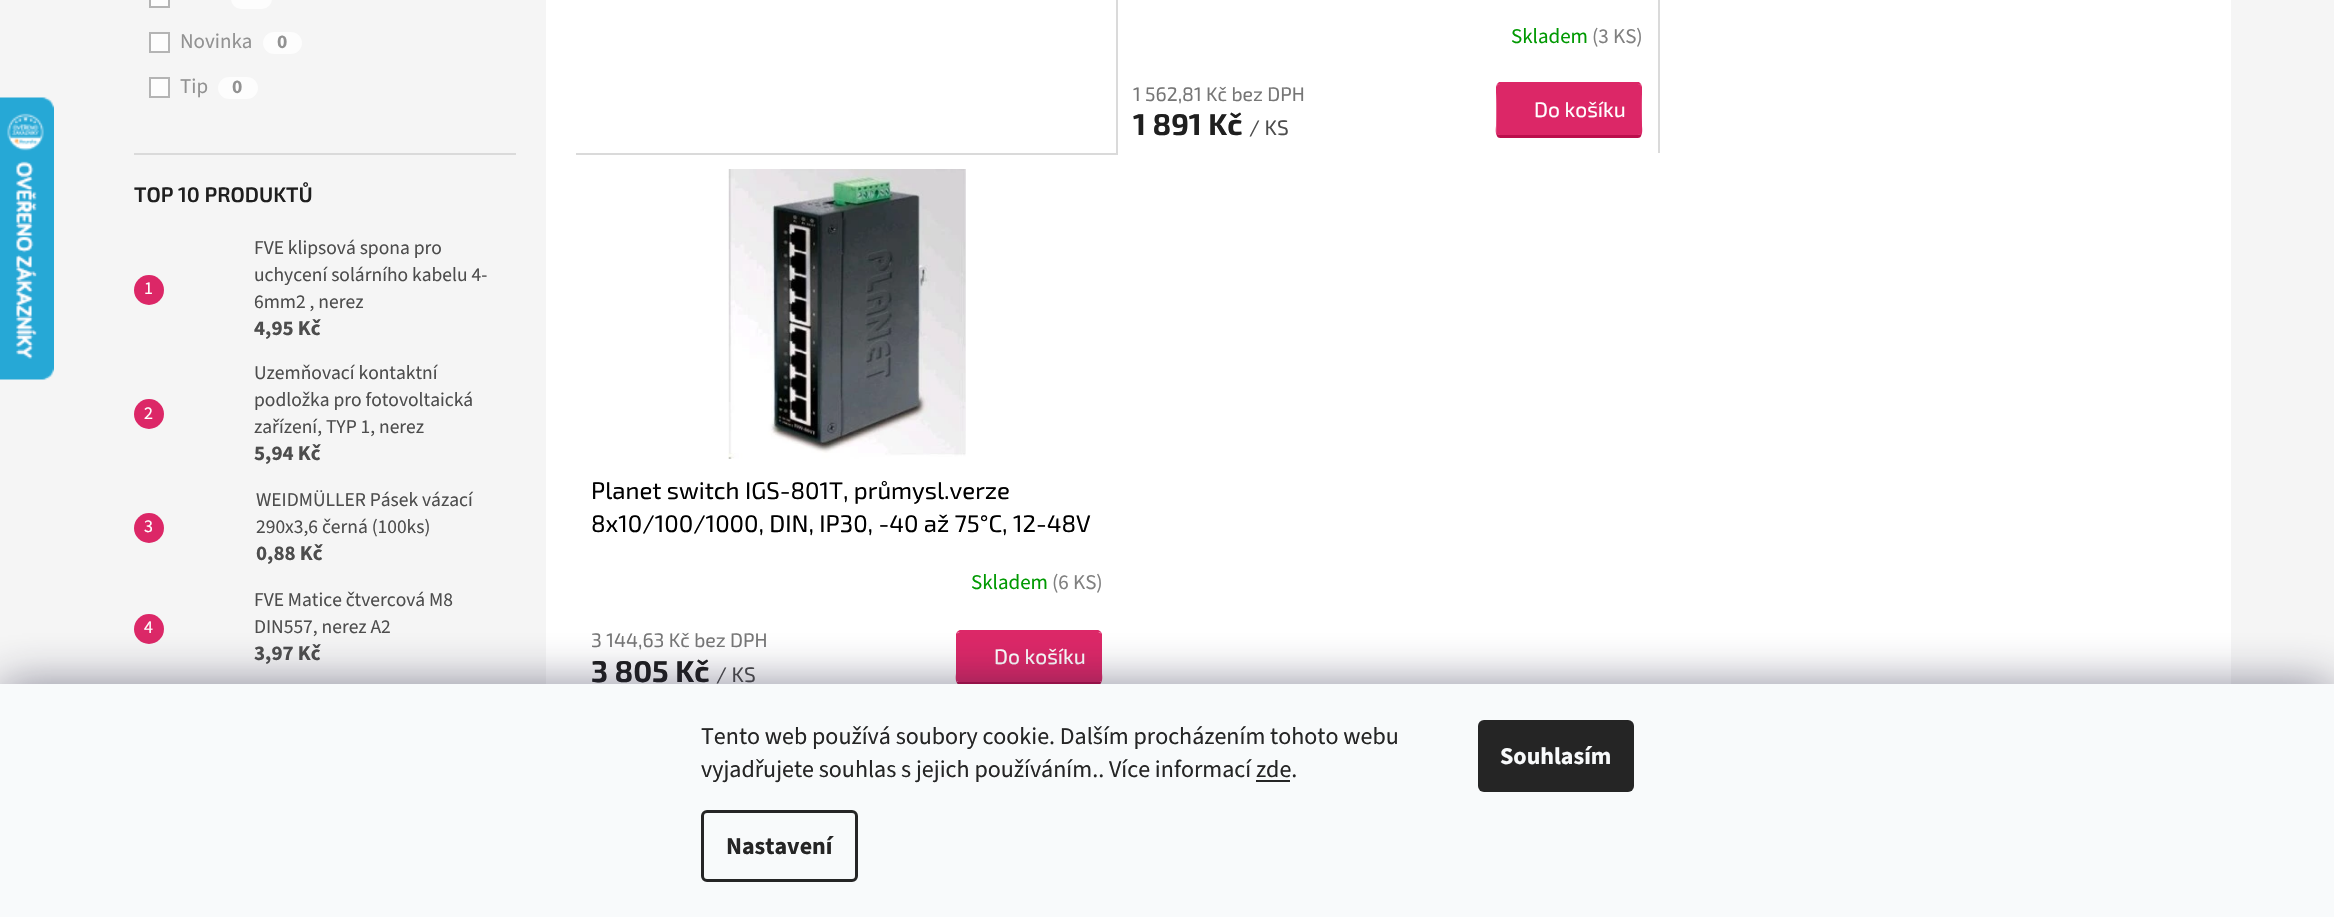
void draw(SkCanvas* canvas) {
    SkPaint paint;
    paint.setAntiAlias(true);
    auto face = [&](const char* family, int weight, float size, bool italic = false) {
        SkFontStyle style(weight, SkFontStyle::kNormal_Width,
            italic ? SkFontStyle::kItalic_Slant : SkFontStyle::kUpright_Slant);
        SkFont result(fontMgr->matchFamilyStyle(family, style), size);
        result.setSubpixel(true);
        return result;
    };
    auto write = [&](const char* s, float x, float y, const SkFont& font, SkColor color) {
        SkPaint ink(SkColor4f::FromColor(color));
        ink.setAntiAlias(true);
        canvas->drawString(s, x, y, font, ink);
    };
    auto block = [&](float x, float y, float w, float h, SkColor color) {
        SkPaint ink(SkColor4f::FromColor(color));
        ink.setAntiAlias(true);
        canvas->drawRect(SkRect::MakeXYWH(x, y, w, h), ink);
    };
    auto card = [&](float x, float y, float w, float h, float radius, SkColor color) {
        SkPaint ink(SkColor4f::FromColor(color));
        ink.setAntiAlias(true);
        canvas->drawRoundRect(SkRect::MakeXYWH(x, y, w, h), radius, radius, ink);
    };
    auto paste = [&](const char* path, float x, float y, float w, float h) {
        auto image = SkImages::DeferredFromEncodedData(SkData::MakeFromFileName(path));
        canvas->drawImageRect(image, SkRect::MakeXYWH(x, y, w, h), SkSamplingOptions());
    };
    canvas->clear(SkColorSetRGB(245, 245, 245));
    paste("pic1.png", 0, 97, 54, 283);
    block(546, 0, 1685, 684, SK_ColorWHITE);
    block(134, 153, 382, 2, SkColorSetRGB(218, 218, 218));
    paint.setColor(SkColorSetRGB(253, 253, 253));
    canvas->drawRect(SkRect::MakeXYWH(150, -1, 19, 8), paint);
    paint.setStyle(SkPaint::kStroke_Style);
    paint.setStrokeWidth(2);
    paint.setColor(SkColorSetRGB(180, 180, 180));
    canvas->drawRect(SkRect::MakeXYWH(150, -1, 19, 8), paint);
    card(231, -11, 41, 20, 11, SkColorSetRGB(253, 253, 253));
    paint.setStyle(SkPaint::kFill_Style);
    paint.setColor(SkColorSetRGB(253, 253, 253));
    canvas->drawRect(SkRect::MakeXYWH(150, 33, 19, 19), paint);
    paint.setStyle(SkPaint::kStroke_Style);
    paint.setColor(SkColorSetRGB(180, 180, 180));
    canvas->drawRect(SkRect::MakeXYWH(150, 33, 19, 19), paint);
    auto kFont1 = face("Source Sans 3", 400, 21);
    write("Novinka", 180, 48, kFont1, SkColorSetRGB(146, 146, 146));
    card(263, 32, 39, 22, 11, SkColorSetRGB(253, 253, 253));
    auto kFont2 = face("Source Sans 3", 700, 19.5f);
    write("0", 277, 48, kFont2, SkColorSetRGB(146, 146, 146));
    paint.setStyle(SkPaint::kFill_Style);
    paint.setColor(SkColorSetRGB(253, 253, 253));
    canvas->drawRect(SkRect::MakeXYWH(150, 78, 19, 19), paint);
    paint.setStyle(SkPaint::kStroke_Style);
    paint.setColor(SkColorSetRGB(180, 180, 180));
    canvas->drawRect(SkRect::MakeXYWH(150, 78, 19, 19), paint);
    write("Tip", 180, 93, kFont1, SkColorSetRGB(146, 146, 146));
    card(218, 77, 40, 22, 11, SkColorSetRGB(253, 253, 253));
    write("0", 232, 93, kFont2, SkColorSetRGB(146, 146, 146));
    auto kFont3 = face("Exo 2", 600, 21);
    write("TOP 10 PRODUKTŮ", 134, 202, kFont3, SkColorSetRGB(31, 31, 31));
    paint.setStyle(SkPaint::kFill_Style);
    paint.setColor(SkColorSetRGB(220, 39, 103));
    canvas->drawCircle(149, 290, 15, paint);
    auto kFont4 = face("Source Sans 3", 400, 18);
    write("1", 144, 294, kFont4, SK_ColorWHITE);
    auto kFont5 = face("Source Sans 3", 400, 19.5f);
    write("FVE klipsová spona pro", 254, 254, kFont5, SkColorSetRGB(77, 77, 77));
    write("uchycení solárního kabelu 4-", 254, 281, kFont5, SkColorSetRGB(77, 77, 77));
    write("6mm2 , nerez", 254, 308, kFont5, SkColorSetRGB(77, 77, 77));
    auto kFont6 = face("Source Sans 3", 700, 21);
    write("4,95 Kč", 254, 335, kFont6, SkColorSetRGB(77, 77, 77));
    canvas->drawCircle(149, 414, 15, paint);
    write("2", 144, 419, kFont4, SK_ColorWHITE);
    write("Uzemňovací kontaktní", 254, 379, kFont5, SkColorSetRGB(77, 77, 77));
    write("podložka pro fotovoltaická", 254, 406, kFont5, SkColorSetRGB(77, 77, 77));
    write("zařízení, TYP 1, nerez", 254, 433, kFont5, SkColorSetRGB(77, 77, 77));
    write("5,94 Kč", 254, 460, kFont6, SkColorSetRGB(77, 77, 77));
    canvas->drawCircle(149, 528, 15, paint);
    write("3", 144, 532, kFont4, SK_ColorWHITE);
    write("WEIDMÜLLER Pásek vázací", 256, 506, kFont5, SkColorSetRGB(77, 77, 77));
    write("290x3,6 černá (100ks)", 256, 533, kFont5, SkColorSetRGB(77, 77, 77));
    write("0,88 Kč", 256, 560, kFont6, SkColorSetRGB(77, 77, 77));
    canvas->drawCircle(149, 629, 15, paint);
    write("4", 144, 633, kFont4, SK_ColorWHITE);
    write("FVE Matice čtvercová M8", 254, 606, kFont5, SkColorSetRGB(77, 77, 77));
    write("DIN557, nerez A2", 254, 633, kFont5, SkColorSetRGB(77, 77, 77));
    write("3,97 Kč", 254, 660, kFont6, SkColorSetRGB(77, 77, 77));
    block(1116, 0, 2, 153, SkColorSetRGB(218, 218, 218));
    block(1658, 0, 2, 153, SkColorSetRGB(218, 218, 218));
    write("Skladem", 1511, 43, kFont1, SkColorSetRGB(0, 153, 1));
    write("(3 KS)", 1592, 43, kFont1, SkColorSetRGB(128, 128, 128));
    auto kFont7 = face("Exo 2", 400, 19.5f);
    write("1 562,81 Kč bez DPH", 1133, 101, kFont7, SkColorSetRGB(118, 118, 118));
    auto kFont8 = face("Exo 2", 700, 30);
    write("1 891 Kč", 1133, 135, kFont8, SkColorSetRGB(31, 31, 31));
    auto kFont9 = face("Exo 2", 400, 21);
    write("/ KS", 1249, 135, kFont9, SkColorSetRGB(77, 77, 77));
    canvas->drawPath(SkPathBuilder().moveTo(1500, 84).lineTo(1638, 84).cubicTo(1640, 84, 1641, 85, 1641, 87).lineTo(1641, 134).cubicTo(1641, 134, 1640, 135, 1638, 135).lineTo(1500, 135).cubicTo(1498, 135, 1497, 134, 1497, 134).lineTo(1497, 87).cubicTo(1497, 85, 1498, 84, 1500, 84).close().detach(), paint);
    canvas->drawPath(SkPathBuilder().moveTo(1500, 84).lineTo(1498, 85).lineTo(1497, 84).lineTo(1499, 82).lineTo(1639, 82).lineTo(1641, 84).lineTo(1640, 85).lineTo(1638, 84).close().detach(), paint);
    canvas->drawPath(SkPathBuilder().moveTo(1641, 84).lineTo(1642, 87).lineTo(1642, 126).cubicTo(1642, 127, 1643, 133, 1641, 136).lineTo(1641, 134).cubicTo(1641, 128, 1642, 87, 1640, 85).close().detach(), paint);
    paint.setColor(SkColorSetRGB(187, 15, 76));
    canvas->drawPath(SkPathBuilder().moveTo(1500, 138).lineTo(1638, 138).cubicTo(1639, 138, 1641, 137, 1641, 136).lineTo(1641, 134).lineTo(1638, 135).lineTo(1592, 135).lineTo(1500, 135).lineTo(1497, 134).lineTo(1497, 136).cubicTo(1497, 137, 1499, 138, 1500, 138).close().detach(), paint);
    paint.setColor(SkColorSetRGB(220, 39, 103));
    canvas->drawPath(SkPathBuilder().moveTo(1497, 136).cubicTo(1495, 133, 1496, 127, 1496, 126).lineTo(1496, 87).lineTo(1497, 84).lineTo(1498, 85).cubicTo(1496, 87, 1497, 128, 1497, 134).close().detach(), paint);
    write("Do košíku", 1534, 117, kFont9, SK_ColorWHITE);
    block(576, 153, 542, 2, SkColorSetRGB(218, 218, 218));
    paste("pic2.png", 728, 169, 238, 290);
    auto kFont10 = face("Exo 2", 400, 24);
    write("Planet switch IGS-801T, průmysl.verze", 591, 499, kFont10, SK_ColorBLACK);
    write("8x10/100/1000, DIN, IP30, -40 až 75°C, 12-48V", 591, 532, kFont10, SK_ColorBLACK);
    write("Skladem", 971, 589, kFont1, SkColorSetRGB(0, 153, 1));
    write("(6 KS)", 1052, 589, kFont1, SkColorSetRGB(128, 128, 128));
    write("3 144,63 Kč bez DPH", 591, 647, kFont7, SkColorSetRGB(118, 118, 118));
    write("3 805 Kč", 591, 682, kFont8, SkColorSetRGB(31, 31, 31));
    write("/ KS", 716, 682, kFont9, SkColorSetRGB(77, 77, 77));
    canvas->drawPath(SkPathBuilder().moveTo(960, 632).lineTo(1098, 632).cubicTo(1100, 632, 1101, 633, 1101, 634).lineTo(1101, 681).cubicTo(1101, 682, 1100, 682, 1098, 682).lineTo(960, 682).cubicTo(958, 682, 957, 682, 957, 681).lineTo(957, 634).cubicTo(957, 633, 958, 632, 960, 632).close().detach(), paint);
    canvas->drawPath(SkPathBuilder().moveTo(960, 630).cubicTo(959, 630, 958, 631, 957, 632).lineTo(958, 632).lineTo(960, 632).lineTo(1098, 632).lineTo(1100, 632).lineTo(1101, 632).cubicTo(1100, 631, 1099, 630, 1098, 630).close().detach(), paint);
    canvas->drawPath(SkPathBuilder().moveTo(1101, 632).lineTo(1102, 634).lineTo(1102, 673).cubicTo(1102, 675, 1103, 680, 1101, 683).lineTo(1101, 682).lineTo(1101, 634).lineTo(1100, 632).close().detach(), paint);
    paint.setColor(SkColorSetRGB(187, 15, 76));
    canvas->drawPath(SkPathBuilder().moveTo(959, 686).lineTo(957, 683).lineTo(957, 682).lineTo(1101, 682).lineTo(1101, 683).lineTo(1099, 686).close().detach(), paint);
    paint.setColor(SkColorSetRGB(220, 39, 103));
    canvas->drawPath(SkPathBuilder().moveTo(957, 632).lineTo(956, 634).lineTo(956, 673).cubicTo(956, 675, 955, 680, 957, 683).lineTo(957, 682).lineTo(957, 634).lineTo(958, 632).close().detach(), paint);
    write("Do košíku", 994, 664, kFont9, SK_ColorWHITE);
    paint.setColor(SkColorSetARGB(128, 27, 25, 57));
    paint.setMaskFilter(SkMaskFilter::MakeBlur(kNormal_SkBlurStyle, 22.5f));
    canvas->drawRect(SkRect::MakeXYWH(0, 684, 2334, 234), paint);
    paint.setMaskFilter(nullptr);
    block(0, 684, 2334, 233, SkColorSetRGB(248, 250, 251));
    auto kFont11 = face("Source Sans 3", 400, 24);
    write("Tento web používá soubory cookie. Dalším procházením tohoto webu", 701, 744, kFont11, SkColorSetRGB(37, 37, 37));
    write("vyjadřujete souhlas s jejich používáním.. Více informací zde.", 701, 777, kFont11, SkColorSetRGB(37, 37, 37));
    block(1256, 780, 34, 2, SkColorSetRGB(37, 37, 37));
    paint.setStyle(SkPaint::kStroke_Style);
    paint.setStrokeWidth(3);
    paint.setColor(SkColorSetRGB(37, 37, 37));
    canvas->drawRoundRect(SkRect::MakeXYWH(702.5f, 811.5f, 154, 69), 4.5f, 4.5f, paint);
    auto kFont12 = face("Source Sans 3", 700, 24);
    write("Nastavení", 726, 854, kFont12, SkColorSetRGB(37, 37, 37));
    card(1478, 720, 156, 72, 6, SkColorSetRGB(37, 37, 37));
    write("Souhlasím", 1500, 764, kFont12, SkColorSetRGB(248, 250, 251));
}
